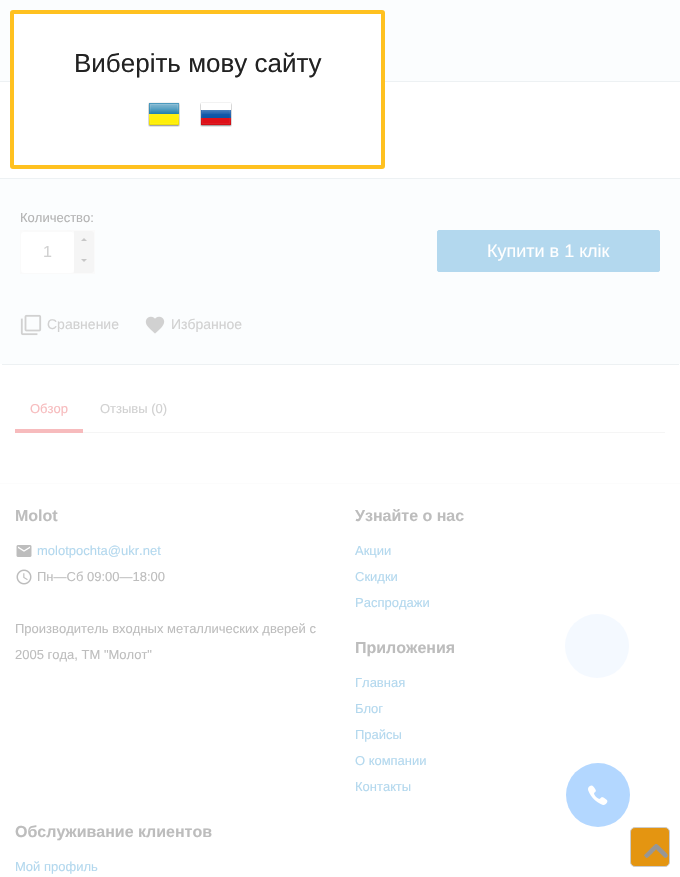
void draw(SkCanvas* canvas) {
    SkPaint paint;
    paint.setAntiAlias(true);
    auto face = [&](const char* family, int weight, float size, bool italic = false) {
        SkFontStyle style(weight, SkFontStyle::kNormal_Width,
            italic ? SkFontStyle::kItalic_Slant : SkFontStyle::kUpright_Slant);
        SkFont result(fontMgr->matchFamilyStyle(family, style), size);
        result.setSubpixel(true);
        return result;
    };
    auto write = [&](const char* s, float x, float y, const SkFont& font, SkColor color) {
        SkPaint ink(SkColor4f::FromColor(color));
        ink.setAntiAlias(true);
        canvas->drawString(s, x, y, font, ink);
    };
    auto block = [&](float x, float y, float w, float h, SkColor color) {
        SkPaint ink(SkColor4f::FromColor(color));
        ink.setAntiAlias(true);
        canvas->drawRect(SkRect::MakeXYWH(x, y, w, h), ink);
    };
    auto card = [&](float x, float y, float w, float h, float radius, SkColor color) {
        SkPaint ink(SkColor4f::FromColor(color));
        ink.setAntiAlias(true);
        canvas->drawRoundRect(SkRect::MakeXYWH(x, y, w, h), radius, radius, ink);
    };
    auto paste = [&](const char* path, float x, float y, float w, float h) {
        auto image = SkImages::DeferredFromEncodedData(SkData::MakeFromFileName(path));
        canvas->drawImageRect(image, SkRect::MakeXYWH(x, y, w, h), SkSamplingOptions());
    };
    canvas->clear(SK_ColorWHITE);
    block(0, 0, 680, 81, SkColorSetRGB(251, 253, 254));
    block(0, 81, 680, 1, SkColorSetRGB(237, 241, 243));
    block(14, 14, 367, 68, SK_ColorWHITE);
    paint.setStyle(SkPaint::kStroke_Style);
    paint.setStrokeWidth(4);
    paint.setColor(SkColorSetRGB(255, 193, 32));
    canvas->drawRoundRect(SkRect::MakeXYWH(12, 12, 371, 155), 1, 1, paint);
    auto kFont1 = face("Liberation Sans", 400, 26);
    write("Виберіть мову сайту", 74, 72, kFont1, SkColorSetRGB(34, 34, 34));
    paste("pic1.png", 148, 102, 32, 25);
    paste("pic2.png", 200, 102, 32, 25);
    block(2, 364, 677, 1, SkColorSetRGB(237, 241, 243));
    block(0, 179, 680, 185, SkColorSetRGB(251, 253, 254));
    block(0, 178, 680, 1, SkColorSetRGB(237, 241, 243));
    auto kFont2 = face("Liberation Sans", 400, 13);
    write("Количество:", 20, 222, kFont2, SkColorSetRGB(179, 179, 179));
    block(20, 230, 75, 44, SkColorSetRGB(250, 250, 250));
    card(21, 231, 53, 42, 3, SK_ColorWHITE);
    paint.setStyle(SkPaint::kFill_Style);
    paint.setColor(SkColorSetARGB(18, 179, 179, 179));
    canvas->drawPath(SkPathBuilder().moveTo(24, 232).lineTo(71, 232).cubicTo(73, 232, 74, 233, 74, 235).cubicTo(74, 229, 68, 231, 63, 231).lineTo(32, 231).cubicTo(27, 231, 21, 229, 21, 235).cubicTo(21, 233, 22, 232, 24, 232).close().detach(), paint);
    auto kFont3 = face("Liberation Sans", 400, 16);
    write("1", 43, 257, kFont3, SkColorSetRGB(209, 209, 209));
    paint.setColor(SkColorSetRGB(245, 245, 245));
    canvas->drawPath(SkPathBuilder().moveTo(74, 231).lineTo(91, 231).cubicTo(92.5f, 231, 94, 232.5f, 94, 234).lineTo(94, 252).lineTo(74, 252).close().detach(), paint);
    paint.setColor(SkColorSetRGB(199, 199, 199));
    canvas->drawPath(SkPathBuilder().moveTo(87, 241).lineTo(81, 241).lineTo(84, 238).close().detach(), paint);
    paint.setColor(SkColorSetRGB(245, 245, 245));
    canvas->drawPath(SkPathBuilder().moveTo(74, 252).lineTo(94, 252).lineTo(94, 270).cubicTo(94, 271.5f, 92.5f, 273, 91, 273).lineTo(74, 273).close().detach(), paint);
    paint.setColor(SkColorSetRGB(199, 199, 199));
    canvas->drawPath(SkPathBuilder().moveTo(81, 259).lineTo(87, 259).lineTo(84, 262).close().detach(), paint);
    paint.setColor(SkColorSetRGB(179, 216, 238));
    canvas->drawRoundRect(SkRect::MakeXYWH(437.5f, 230.5f, 222, 41), 1.5f, 1.5f, paint);
    paint.setStyle(SkPaint::kStroke_Style);
    paint.setStrokeWidth(1);
    canvas->drawRoundRect(SkRect::MakeXYWH(437.5f, 230.5f, 222, 41), 1.5f, 1.5f, paint);
    auto kFont4 = face("Liberation Sans", 400, 18);
    write("Купити в 1 клік", 487, 257, kFont4, SK_ColorWHITE);
    paste("pic3.png", 20, 314, 22, 22);
    auto kFont5 = face("Liberation Sans", 400, 14);
    write("Сравнение", 47, 329, kFont5, SkColorSetRGB(209, 209, 209));
    paste("pic4.png", 145, 316, 20, 18);
    write("Избранное", 171, 329, kFont5, SkColorSetRGB(209, 209, 209));
    block(83, 432, 582, 1, SkColorSetRGB(245, 245, 245));
    block(15, 429, 68, 4, SkColorSetRGB(247, 187, 189));
    write("Обзор", 30, 413, kFont2, SkColorSetRGB(247, 187, 189));
    write("Отзывы (0)", 100, 413, kFont2, SkColorSetRGB(209, 209, 209));
    block(0, 483, 680, 1, SkColorSetRGB(252, 252, 252));
    auto kFont6 = face("Liberation Sans", 700, 16);
    write("Molot", 15, 521, kFont6, SkColorSetRGB(189, 189, 189));
    paste("pic5.png", 16, 545, 16, 12);
    write("molotpochta@ukr.net", 37, 555, kFont2, SkColorSetRGB(179, 216, 238));
    paste("pic6.png", 16, 569, 16, 16);
    write("Пн—Сб 09:00—18:00", 37, 581, kFont2, SkColorSetRGB(189, 189, 189));
    write("Производитель входных металлических дверей с", 15, 633, kFont2, SkColorSetRGB(189, 189, 189));
    write("2005 года, ТМ \"Молот\"", 15, 659, kFont2, SkColorSetRGB(189, 189, 189));
    write("Узнайте о нас", 355, 521, kFont6, SkColorSetRGB(189, 189, 189));
    write("Акции", 355, 555, kFont2, SkColorSetRGB(179, 216, 238));
    write("Скидки", 355, 581, kFont2, SkColorSetRGB(179, 216, 238));
    write("Распродажи", 355, 607, kFont2, SkColorSetRGB(179, 216, 238));
    write("Приложения", 355, 653, kFont6, SkColorSetRGB(189, 189, 189));
    write("Главная", 355, 687, kFont2, SkColorSetRGB(179, 216, 238));
    write("Блог", 355, 713, kFont2, SkColorSetRGB(179, 216, 238));
    write("Прайсы", 355, 739, kFont2, SkColorSetRGB(179, 216, 238));
    write("О компании", 355, 765, kFont2, SkColorSetRGB(179, 216, 238));
    write("Контакты", 355, 791, kFont2, SkColorSetRGB(179, 216, 238));
    write("Обслуживание клиентов", 15, 837, kFont6, SkColorSetRGB(189, 189, 189));
    write("Мой профиль", 15, 871, kFont2, SkColorSetRGB(179, 216, 238));
    paint.setStyle(SkPaint::kFill_Style);
    paint.setColor(SkColorSetRGB(228, 149, 17));
    canvas->drawRoundRect(SkRect::MakeXYWH(630.5f, 827.5f, 39, 39), 4.5f, 4.5f, paint);
    paint.setStyle(SkPaint::kStroke_Style);
    paint.setColor(SkColorSetRGB(204, 204, 204));
    canvas->drawRoundRect(SkRect::MakeXYWH(630.5f, 827.5f, 39, 39), 4.5f, 4.5f, paint);
    paste("pic7.png", 644, 844, 24, 14);
    paint.setStyle(SkPaint::kFill_Style);
    paint.setColor(SkColorSetRGB(179, 215, 255));
    canvas->drawCircle(598, 795, 32, paint);
    paint.setColor(SkColorSetRGB(244, 249, 255));
    canvas->drawCircle(597, 646, 32, paint);
    paste("pic8.png", 588, 785, 20, 20);
}
